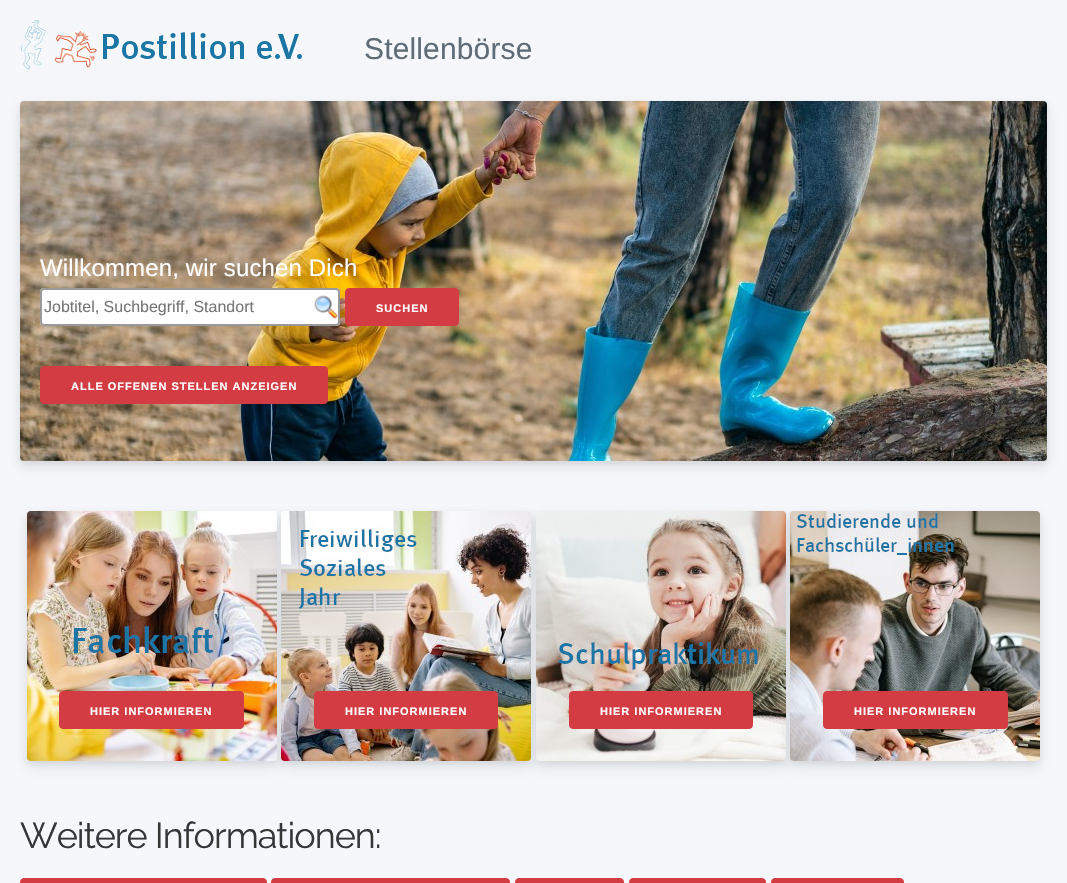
void draw(SkCanvas* canvas) {
    SkPaint paint;
    paint.setAntiAlias(true);
    auto face = [&](const char* family, int weight, float size, bool italic = false) {
        SkFontStyle style(weight, SkFontStyle::kNormal_Width,
            italic ? SkFontStyle::kItalic_Slant : SkFontStyle::kUpright_Slant);
        SkFont result(fontMgr->matchFamilyStyle(family, style), size);
        result.setSubpixel(true);
        return result;
    };
    auto write = [&](const char* s, float x, float y, const SkFont& font, SkColor color) {
        SkPaint ink(SkColor4f::FromColor(color));
        ink.setAntiAlias(true);
        canvas->drawString(s, x, y, font, ink);
    };
    auto writeSpaced = [&](const char* s, float x, float y, const SkFont& font, const SkPaint& ink, float letter, float word) {
        std::vector<SkGlyphID> glyphs(font.countText(s, strlen(s), SkTextEncoding::kUTF8));
        std::vector<float> xs(glyphs.size());
        font.textToGlyphs(s, strlen(s), SkTextEncoding::kUTF8, glyphs);
        font.getXPos(glyphs, xs, x);
        float extra = 0;
        for (size_t i = 0; i < glyphs.size(); i++) {
            xs[i] += extra;
            extra += letter + word * (glyphs[i] == font.unicharToGlyph(' '));
        }
        canvas->drawTextBlob(SkTextBlob::MakeFromPosHGlyphs(glyphs, xs, y, font), 0, 0, ink);
    };
    auto card = [&](float x, float y, float w, float h, float radius, SkColor color) {
        SkPaint ink(SkColor4f::FromColor(color));
        ink.setAntiAlias(true);
        canvas->drawRoundRect(SkRect::MakeXYWH(x, y, w, h), radius, radius, ink);
    };
    auto paste = [&](const char* path, float x, float y, float w, float h) {
        auto image = SkImages::DeferredFromEncodedData(SkData::MakeFromFileName(path));
        canvas->drawImageRect(image, SkRect::MakeXYWH(x, y, w, h), SkSamplingOptions());
    };
    canvas->clear(SkColorSetRGB(245, 247, 250));
    paste("pic1.png", 20, 20, 282, 49);
    auto kFont1 = face("Liberation Sans", 400, 30);
    paint.setColor(SkColorSetRGB(96, 108, 118));
    writeSpaced("Stellenbörse", 364, 59, kFont1, paint, 0.15f, 0);
    paint.setColor(SkColorSetARGB(18, 0, 0, 0));
    paint.setMaskFilter(SkMaskFilter::MakeBlur(kNormal_SkBlurStyle, 3));
    canvas->drawRoundRect(SkRect::MakeXYWH(20, 104, 1027, 360), 4, 4, paint);
    paint.setMaskFilter(nullptr);
    paint.setColor(SkColorSetARGB(26, 60, 66, 87));
    paint.setMaskFilter(SkMaskFilter::MakeBlur(kNormal_SkBlurStyle, 7));
    canvas->drawRoundRect(SkRect::MakeXYWH(20, 108, 1027, 360), 4, 4, paint);
    paint.setMaskFilter(nullptr);
    paste("pic2.png", 20, 101, 1027, 360);
    auto kFont2 = face("Liberation Sans", 400, 24);
    paint.setColor(SK_ColorWHITE);
    writeSpaced("Willkommen, wir suchen Dich", 40, 276, kFont2, paint, 0.15f, 0);
    card(40, 288, 300, 38, 4, SK_ColorWHITE);
    paste("pic3.png", 314, 295, 24, 24);
    paint.setStyle(SkPaint::kStroke_Style);
    paint.setStrokeWidth(2);
    paint.setColor(SkColorSetRGB(153, 153, 153));
    canvas->drawRoundRect(SkRect::MakeXYWH(41, 289, 298, 36), 3, 3, paint);
    auto kFont3 = face("Liberation Sans", 400, 16);
    write("Jobtitel, Suchbegriff, Standort", 44, 312, kFont3, SkColorSetRGB(117, 117, 117));
    paint.setStyle(SkPaint::kFill_Style);
    paint.setColor(SkColorSetRGB(211, 60, 67));
    canvas->drawRoundRect(SkRect::MakeXYWH(345.5f, 288.5f, 113, 37), 3.5f, 3.5f, paint);
    paint.setStyle(SkPaint::kStroke_Style);
    paint.setStrokeWidth(1);
    canvas->drawRoundRect(SkRect::MakeXYWH(345.5f, 288.5f, 113, 37), 3.5f, 3.5f, paint);
    auto kFont4 = face("Liberation Sans", 700, 11);
    paint.setStyle(SkPaint::kFill_Style);
    paint.setColor(SK_ColorWHITE);
    writeSpaced("SUCHEN", 376, 312, kFont4, paint, 1, 0);
    paint.setColor(SkColorSetRGB(211, 60, 67));
    canvas->drawRoundRect(SkRect::MakeXYWH(40.5f, 366.5f, 287, 37), 3.5f, 3.5f, paint);
    paint.setStyle(SkPaint::kStroke_Style);
    canvas->drawRoundRect(SkRect::MakeXYWH(40.5f, 366.5f, 287, 37), 3.5f, 3.5f, paint);
    paint.setStyle(SkPaint::kFill_Style);
    paint.setColor(SK_ColorWHITE);
    writeSpaced("ALLE OFFENEN STELLEN ANZEIGEN", 71, 390, kFont4, paint, 1, 0);
    paint.setColor(SkColorSetARGB(18, 0, 0, 0));
    paint.setMaskFilter(SkMaskFilter::MakeBlur(kNormal_SkBlurStyle, 3));
    canvas->drawRoundRect(SkRect::MakeXYWH(27, 514, 250, 250), 4, 4, paint);
    paint.setMaskFilter(nullptr);
    paint.setColor(SkColorSetARGB(26, 60, 66, 87));
    paint.setMaskFilter(SkMaskFilter::MakeBlur(kNormal_SkBlurStyle, 7));
    canvas->drawRoundRect(SkRect::MakeXYWH(27, 518, 250, 250), 4, 4, paint);
    paint.setMaskFilter(nullptr);
    paste("pic4.png", 27, 511, 250, 250);
    paint.setColor(SkColorSetRGB(211, 60, 67));
    canvas->drawRoundRect(SkRect::MakeXYWH(59.5f, 691.5f, 184, 37), 3.5f, 3.5f, paint);
    paint.setStyle(SkPaint::kStroke_Style);
    canvas->drawRoundRect(SkRect::MakeXYWH(59.5f, 691.5f, 184, 37), 3.5f, 3.5f, paint);
    paint.setStyle(SkPaint::kFill_Style);
    paint.setColor(SK_ColorWHITE);
    writeSpaced("HIER INFORMIEREN", 90, 715, kFont4, paint, 1, 0);
    paint.setColor(SkColorSetARGB(18, 0, 0, 0));
    paint.setMaskFilter(SkMaskFilter::MakeBlur(kNormal_SkBlurStyle, 3));
    canvas->drawRoundRect(SkRect::MakeXYWH(281, 514, 250, 250), 4, 4, paint);
    paint.setMaskFilter(nullptr);
    paint.setColor(SkColorSetARGB(26, 60, 66, 87));
    paint.setMaskFilter(SkMaskFilter::MakeBlur(kNormal_SkBlurStyle, 7));
    canvas->drawRoundRect(SkRect::MakeXYWH(281, 518, 250, 250), 4, 4, paint);
    paint.setMaskFilter(nullptr);
    paste("pic5.png", 281, 511, 250, 250);
    paint.setColor(SkColorSetRGB(211, 60, 67));
    canvas->drawRoundRect(SkRect::MakeXYWH(314.5f, 691.5f, 183, 37), 3.5f, 3.5f, paint);
    paint.setStyle(SkPaint::kStroke_Style);
    canvas->drawRoundRect(SkRect::MakeXYWH(314.5f, 691.5f, 183, 37), 3.5f, 3.5f, paint);
    paint.setStyle(SkPaint::kFill_Style);
    paint.setColor(SK_ColorWHITE);
    writeSpaced("HIER INFORMIEREN", 345, 715, kFont4, paint, 1, 0);
    paint.setColor(SkColorSetARGB(18, 0, 0, 0));
    paint.setMaskFilter(SkMaskFilter::MakeBlur(kNormal_SkBlurStyle, 3));
    canvas->drawRoundRect(SkRect::MakeXYWH(536, 514, 250, 250), 4, 4, paint);
    paint.setMaskFilter(nullptr);
    paint.setColor(SkColorSetARGB(26, 60, 66, 87));
    paint.setMaskFilter(SkMaskFilter::MakeBlur(kNormal_SkBlurStyle, 7));
    canvas->drawRoundRect(SkRect::MakeXYWH(536, 518, 250, 250), 4, 4, paint);
    paint.setMaskFilter(nullptr);
    paste("pic6.png", 536, 511, 250, 250);
    paint.setColor(SkColorSetRGB(211, 60, 67));
    canvas->drawRoundRect(SkRect::MakeXYWH(569.5f, 691.5f, 183, 37), 3.5f, 3.5f, paint);
    paint.setStyle(SkPaint::kStroke_Style);
    canvas->drawRoundRect(SkRect::MakeXYWH(569.5f, 691.5f, 183, 37), 3.5f, 3.5f, paint);
    paint.setStyle(SkPaint::kFill_Style);
    paint.setColor(SK_ColorWHITE);
    writeSpaced("HIER INFORMIEREN", 600, 715, kFont4, paint, 1, 0);
    paint.setColor(SkColorSetARGB(18, 0, 0, 0));
    paint.setMaskFilter(SkMaskFilter::MakeBlur(kNormal_SkBlurStyle, 3));
    canvas->drawRoundRect(SkRect::MakeXYWH(790, 514, 250, 250), 4, 4, paint);
    paint.setMaskFilter(nullptr);
    paint.setColor(SkColorSetARGB(26, 60, 66, 87));
    paint.setMaskFilter(SkMaskFilter::MakeBlur(kNormal_SkBlurStyle, 7));
    canvas->drawRoundRect(SkRect::MakeXYWH(790, 518, 250, 250), 4, 4, paint);
    paint.setMaskFilter(nullptr);
    paste("pic7.png", 790, 511, 250, 250);
    paint.setColor(SkColorSetRGB(211, 60, 67));
    canvas->drawRoundRect(SkRect::MakeXYWH(823.5f, 691.5f, 184, 37), 3.5f, 3.5f, paint);
    paint.setStyle(SkPaint::kStroke_Style);
    canvas->drawRoundRect(SkRect::MakeXYWH(823.5f, 691.5f, 184, 37), 3.5f, 3.5f, paint);
    paint.setStyle(SkPaint::kFill_Style);
    paint.setColor(SK_ColorWHITE);
    writeSpaced("HIER INFORMIEREN", 854, 715, kFont4, paint, 1, 0);
    auto kFont5 = face("Raleway", 400, 36);
    paint.setColor(SkColorSetRGB(54, 54, 55));
    writeSpaced("Weitere Informationen:", 20, 848, kFont5, paint, -1, 0);
    paint.setColor(SkColorSetRGB(211, 60, 67));
    canvas->drawRoundRect(SkRect::MakeXYWH(20.5f, 878.5f, 246, 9), 3.5f, 3.5f, paint);
    paint.setStyle(SkPaint::kStroke_Style);
    canvas->drawRoundRect(SkRect::MakeXYWH(20.5f, 878.5f, 246, 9), 3.5f, 3.5f, paint);
    paint.setStyle(SkPaint::kFill_Style);
    canvas->drawRoundRect(SkRect::MakeXYWH(271.5f, 878.5f, 238, 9), 3.5f, 3.5f, paint);
    paint.setStyle(SkPaint::kStroke_Style);
    canvas->drawRoundRect(SkRect::MakeXYWH(271.5f, 878.5f, 238, 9), 3.5f, 3.5f, paint);
    paint.setStyle(SkPaint::kFill_Style);
    canvas->drawRoundRect(SkRect::MakeXYWH(515.5f, 878.5f, 108, 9), 3.5f, 3.5f, paint);
    paint.setStyle(SkPaint::kStroke_Style);
    canvas->drawRoundRect(SkRect::MakeXYWH(515.5f, 878.5f, 108, 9), 3.5f, 3.5f, paint);
    paint.setStyle(SkPaint::kFill_Style);
    canvas->drawRoundRect(SkRect::MakeXYWH(629.5f, 878.5f, 136, 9), 3.5f, 3.5f, paint);
    paint.setStyle(SkPaint::kStroke_Style);
    canvas->drawRoundRect(SkRect::MakeXYWH(629.5f, 878.5f, 136, 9), 3.5f, 3.5f, paint);
    paint.setStyle(SkPaint::kFill_Style);
    canvas->drawRoundRect(SkRect::MakeXYWH(771.5f, 878.5f, 132, 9), 3.5f, 3.5f, paint);
    paint.setStyle(SkPaint::kStroke_Style);
    canvas->drawRoundRect(SkRect::MakeXYWH(771.5f, 878.5f, 132, 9), 3.5f, 3.5f, paint);
}
